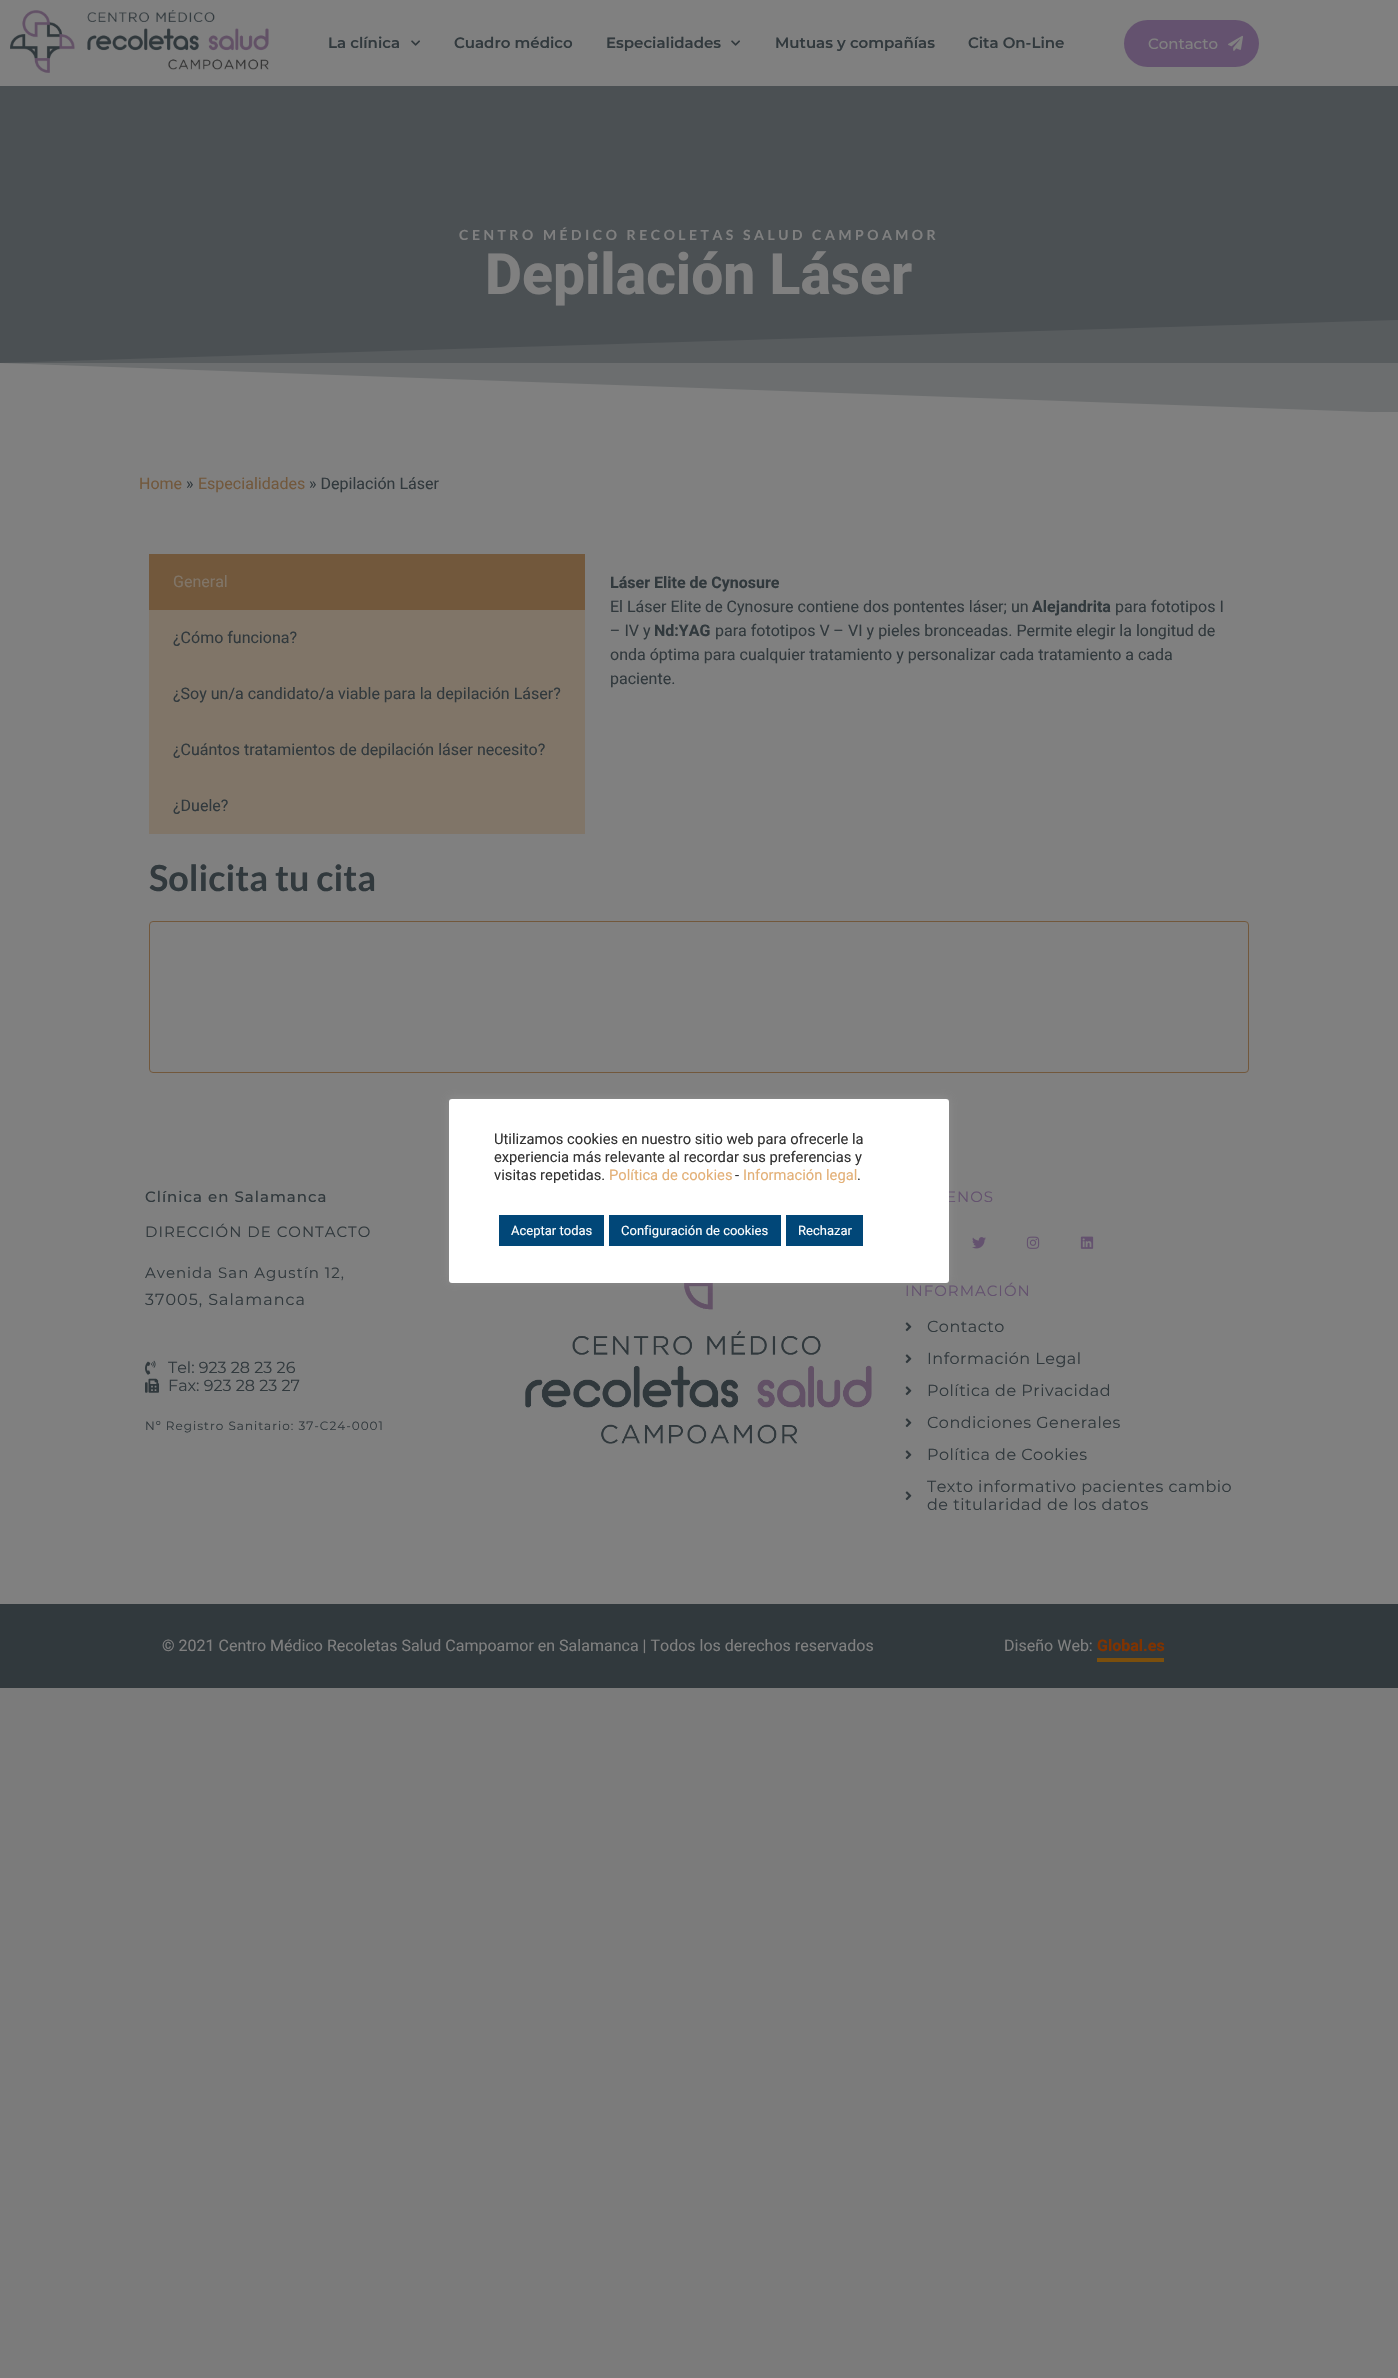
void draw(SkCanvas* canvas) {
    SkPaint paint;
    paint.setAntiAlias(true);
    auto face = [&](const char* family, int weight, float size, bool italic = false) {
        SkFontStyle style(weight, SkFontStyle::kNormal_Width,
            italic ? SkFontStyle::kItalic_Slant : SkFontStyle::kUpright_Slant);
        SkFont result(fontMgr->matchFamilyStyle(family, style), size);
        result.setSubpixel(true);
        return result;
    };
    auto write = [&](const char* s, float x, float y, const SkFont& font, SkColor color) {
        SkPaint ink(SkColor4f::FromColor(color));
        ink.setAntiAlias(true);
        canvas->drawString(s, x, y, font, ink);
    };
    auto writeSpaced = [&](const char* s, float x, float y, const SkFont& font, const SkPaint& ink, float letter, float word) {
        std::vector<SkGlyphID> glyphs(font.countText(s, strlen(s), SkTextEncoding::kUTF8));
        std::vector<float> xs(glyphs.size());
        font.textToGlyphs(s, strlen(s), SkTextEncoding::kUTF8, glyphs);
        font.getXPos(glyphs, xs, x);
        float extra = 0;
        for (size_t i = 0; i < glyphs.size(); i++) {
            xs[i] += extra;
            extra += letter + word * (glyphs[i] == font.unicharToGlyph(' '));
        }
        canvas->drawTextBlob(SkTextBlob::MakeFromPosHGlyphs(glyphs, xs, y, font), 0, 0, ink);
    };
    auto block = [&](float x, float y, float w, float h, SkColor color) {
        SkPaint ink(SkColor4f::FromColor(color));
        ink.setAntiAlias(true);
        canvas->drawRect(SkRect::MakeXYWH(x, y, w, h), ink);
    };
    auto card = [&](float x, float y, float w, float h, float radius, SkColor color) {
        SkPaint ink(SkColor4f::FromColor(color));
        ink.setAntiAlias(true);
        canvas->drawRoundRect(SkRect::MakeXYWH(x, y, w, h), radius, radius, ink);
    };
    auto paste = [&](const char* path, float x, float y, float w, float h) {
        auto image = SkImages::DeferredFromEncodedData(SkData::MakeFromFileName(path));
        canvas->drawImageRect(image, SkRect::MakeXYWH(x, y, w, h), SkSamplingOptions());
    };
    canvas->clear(SkColorSetRGB(123, 123, 123));
    block(0, 0, 1398, 86, SkColorSetRGB(128, 128, 128));
    paste("pic1.png", 10, 10, 259, 63);
    auto kFont1 = face("Montserrat", 600, 15);
    write("La clínica", 328, 48, kFont1, SkColorSetRGB(49, 57, 61));
    paste("pic2.png", 411, 40, 9, 6);
    write("Cuadro médico", 454, 48, kFont1, SkColorSetRGB(49, 57, 61));
    write("Especialidades", 606, 48, kFont1, SkColorSetRGB(49, 57, 61));
    paste("pic2.png", 731, 40, 9, 6);
    write("Mutuas y compañías", 775, 48, kFont1, SkColorSetRGB(49, 57, 61));
    write("Cita On-Line", 968, 48, kFont1, SkColorSetRGB(49, 57, 61));
    card(1124, 20, 135, 47, 23.5f, SkColorSetRGB(100, 82, 111));
    auto kFont2 = face("Montserrat", 500, 15);
    write("Contacto", 1148, 49, kFont2, SkColorSetRGB(128, 128, 128));
    paste("pic3.png", 1228, 35, 15, 16);
    block(0, 86, 1398, 277, SkColorSetRGB(75, 80, 83));
    block(0, 363, 1398, 49, SkColorSetRGB(101, 104, 105));
    auto kFont3 = face("Lato", 700, 14);
    paint.setColor(SkColorSetRGB(128, 128, 128));
    writeSpaced("CENTRO MÉDICO RECOLETAS SALUD CAMPOAMOR", 459, 240, kFont3, paint, 3.5f, 0);
    auto kFont4 = face("Roboto", 800, 57);
    write("Depilación Láser", 485, 294, kFont4, SkColorSetRGB(128, 128, 128));
    canvas->drawPath(SkPathBuilder().moveTo(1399, 413).lineTo(-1, 413).lineTo(-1, 363).close().detach(), paint);
    paint.setColor(SkColorSetARGB(64, 128, 128, 128));
    canvas->drawPath(SkPathBuilder().moveTo(-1, 413).lineTo(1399, 413).lineTo(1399, 320).lineTo(-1, 363).close().detach(), paint);
    block(0, 412, 1398, 1192, SkColorSetRGB(128, 128, 128));
    auto kFont5 = face("Heebo", 400, 16);
    write("Home", 139, 489, kFont5, SkColorSetRGB(114, 88, 60));
    write("»", 186, 489, kFont5, SkColorSetRGB(49, 57, 61));
    write("Especialidades", 198, 489, kFont5, SkColorSetRGB(114, 88, 60));
    write("» Depilación Láser", 309, 489, kFont5, SkColorSetRGB(49, 57, 61));
    block(149, 554, 436, 56, SkColorSetRGB(114, 88, 60));
    write("General", 173, 587, kFont5, SkColorSetRGB(128, 117, 104));
    block(149, 610, 436, 224, SkColorSetRGB(128, 117, 104));
    write("¿Cómo funciona?", 173, 643, kFont5, SkColorSetRGB(49, 57, 61));
    write("¿Soy un/a candidato/a viable para la depilación Láser?", 173, 699, kFont5, SkColorSetRGB(49, 57, 61));
    write("¿Cuántos tratamientos de depilación láser necesito?", 173, 755, kFont5, SkColorSetRGB(49, 57, 61));
    write("¿Duele?", 173, 811, kFont5, SkColorSetRGB(49, 57, 61));
    auto kFont6 = face("Heebo", 700, 16);
    write("Láser Elite de Cynosure", 610, 588, kFont6, SkColorSetRGB(49, 57, 61));
    write("El Láser Elite de Cynosure contiene dos pontentes láser; un", 610, 612, kFont5, SkColorSetRGB(49, 57, 61));
    write("Alejandrita", 1032, 612, kFont6, SkColorSetRGB(49, 57, 61));
    write("para fototipos I", 1115, 612, kFont5, SkColorSetRGB(49, 57, 61));
    write("– IV y", 610, 636, kFont5, SkColorSetRGB(49, 57, 61));
    write("Nd:YAG", 654, 636, kFont6, SkColorSetRGB(49, 57, 61));
    write("para fototipos V – VI y pieles bronceadas. Permite elegir la longitud de", 715, 636, kFont5, SkColorSetRGB(49, 57, 61));
    write("onda óptima para cualquier tratamiento y personalizar cada tratamiento a cada", 610, 660, kFont5, SkColorSetRGB(49, 57, 61));
    write("paciente.", 610, 684, kFont5, SkColorSetRGB(49, 57, 61));
    auto kFont7 = face("Lato", 700, 36);
    write("Solicita tu cita", 149, 891, kFont7, SkColorSetRGB(49, 57, 61));
    paint.setStyle(SkPaint::kStroke_Style);
    paint.setStrokeWidth(1);
    paint.setColor(SkColorSetRGB(114, 88, 60));
    canvas->drawRoundRect(SkRect::MakeXYWH(149.5f, 921.5f, 1099, 151), 3.5f, 3.5f, paint);
    paint.setStyle(SkPaint::kFill_Style);
    paint.setColor(SkColorSetRGB(49, 57, 61));
    writeSpaced("Clínica en Salamanca", 145, 1202, kFont2, paint, 1, 0);
    auto kFont8 = face("Montserrat", 400, 15);
    writeSpaced("DIRECCIÓN DE CONTACTO", 145, 1237, kFont8, paint, 1, 0);
    writeSpaced("Avenida San Agustín 12,", 145, 1278, kFont8, paint, 1, 0);
    auto kFont9 = face("Montserrat", 400, 16);
    writeSpaced("37005, Salamanca", 145, 1305, kFont9, paint, 1, 0);
    paste("pic4.png", 145, 1360, 11, 15);
    write("Tel: 923 28 23 26", 168, 1373, kFont9, SkColorSetRGB(49, 57, 61));
    paste("pic5.png", 145, 1378, 14, 15);
    write("Fax: 923 28 23 27", 168, 1391, kFont9, SkColorSetRGB(49, 57, 61));
    auto kFont10 = face("Montserrat", 400, 12);
    writeSpaced("Nº Registro Sanitario: 37-C24-0001", 145, 1430, kFont10, paint, 1, 0);
    paste("pic6.png", 525, 1283, 347, 161);
    paint.setColor(SkColorSetRGB(100, 82, 111));
    writeSpaced("ENOS", 946, 1202, kFont8, paint, 1, 0);
    paste("pic7.png", 972, 1237, 14, 12);
    paste("pic8.png", 1026, 1236, 14, 13);
    paste("pic9.png", 1080, 1236, 14, 13);
    writeSpaced("INFORMACIÓN", 905, 1296, kFont8, paint, 1, 0);
    paste("pic10.png", 905, 1322, 7, 10);
    paint.setColor(SkColorSetRGB(49, 57, 61));
    writeSpaced("Contacto", 927, 1332, kFont9, paint, 0.5f, 0);
    paste("pic10.png", 905, 1354, 7, 10);
    writeSpaced("Información Legal", 927, 1364, kFont9, paint, 0.5f, 0);
    paste("pic10.png", 905, 1386, 7, 10);
    writeSpaced("Política de Privacidad", 927, 1396, kFont9, paint, 0.5f, 0);
    paste("pic10.png", 905, 1418, 7, 10);
    writeSpaced("Condiciones Generales", 927, 1428, kFont9, paint, 0.5f, 0);
    paste("pic10.png", 905, 1450, 7, 10);
    writeSpaced("Política de Cookies", 927, 1460, kFont9, paint, 0.5f, 0);
    paste("pic10.png", 905, 1491, 7, 10);
    writeSpaced("Texto informativo pacientes cambio", 927, 1492, kFont9, paint, 0.5f, 0);
    writeSpaced("de titularidad de los datos", 927, 1510, kFont9, paint, 0.5f, 0);
    block(0, 1604, 1398, 84, SkColorSetRGB(49, 57, 61));
    write("© 2021 Centro Médico Recoletas Salud Campoamor en Salamanca | Todos los derechos reservados", 162, 1651, kFont5, SkColorSetRGB(128, 128, 128));
    write("Diseño Web:", 1004, 1651, kFont5, SkColorSetRGB(128, 128, 128));
    write("Global.es", 1097, 1651, kFont6, SkColorSetRGB(128, 51, 0));
    block(1097, 1658, 67, 4, SkColorSetRGB(123, 79, 13));
    paint.setColor(SkColorSetARGB(77, 172, 171, 171));
    paint.setMaskFilter(SkMaskFilter::MakeBlur(kNormal_SkBlurStyle, 5));
    canvas->drawRoundRect(SkRect::MakeXYWH(449, 1098, 500, 184), 3, 3, paint);
    paint.setMaskFilter(nullptr);
    card(449, 1099, 500, 184, 3, SK_ColorWHITE);
    auto kFont11 = face("Heebo", 400, 14.7f);
    write("Utilizamos cookies en nuestro sitio web para ofrecerle la", 494, 1144, kFont11, SkColorSetRGB(51, 51, 51));
    write("experiencia más relevante al recordar sus preferencias y", 494, 1162, kFont11, SkColorSetRGB(51, 51, 51));
    write("visitas repetidas.", 494, 1180, kFont11, SkColorSetRGB(51, 51, 51));
    write("Política de cookies", 609, 1180, kFont11, SkColorSetRGB(227, 176, 119));
    write("-", 735, 1180, kFont11, SkColorSetRGB(51, 51, 51));
    write("Información legal", 743, 1180, kFont11, SkColorSetRGB(227, 176, 119));
    write(".", 857, 1180, kFont11, SkColorSetRGB(51, 51, 51));
    block(499, 1215, 105, 31, SkColorSetRGB(1, 71, 120));
    auto kFont12 = face("Heebo", 400, 13);
    write("Aceptar todas", 511, 1235, kFont12, SK_ColorWHITE);
    block(609, 1215, 172, 31, SkColorSetRGB(1, 71, 120));
    write("Configuración de cookies", 621, 1235, kFont12, SK_ColorWHITE);
    block(786, 1215, 77, 31, SkColorSetRGB(1, 71, 120));
    write("Rechazar", 798, 1235, kFont12, SK_ColorWHITE);
}
